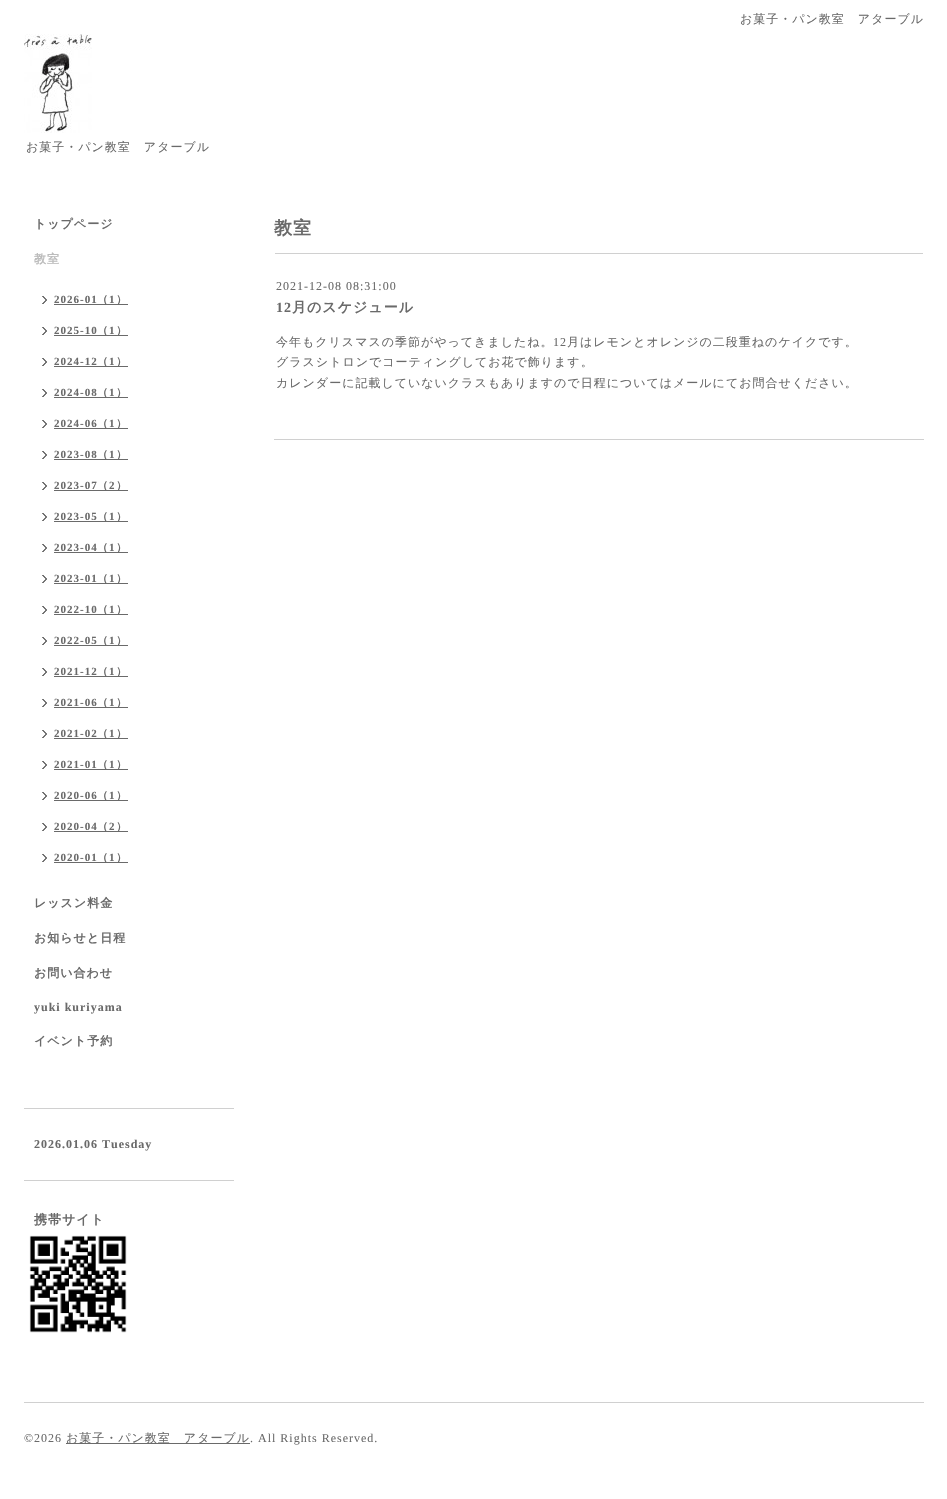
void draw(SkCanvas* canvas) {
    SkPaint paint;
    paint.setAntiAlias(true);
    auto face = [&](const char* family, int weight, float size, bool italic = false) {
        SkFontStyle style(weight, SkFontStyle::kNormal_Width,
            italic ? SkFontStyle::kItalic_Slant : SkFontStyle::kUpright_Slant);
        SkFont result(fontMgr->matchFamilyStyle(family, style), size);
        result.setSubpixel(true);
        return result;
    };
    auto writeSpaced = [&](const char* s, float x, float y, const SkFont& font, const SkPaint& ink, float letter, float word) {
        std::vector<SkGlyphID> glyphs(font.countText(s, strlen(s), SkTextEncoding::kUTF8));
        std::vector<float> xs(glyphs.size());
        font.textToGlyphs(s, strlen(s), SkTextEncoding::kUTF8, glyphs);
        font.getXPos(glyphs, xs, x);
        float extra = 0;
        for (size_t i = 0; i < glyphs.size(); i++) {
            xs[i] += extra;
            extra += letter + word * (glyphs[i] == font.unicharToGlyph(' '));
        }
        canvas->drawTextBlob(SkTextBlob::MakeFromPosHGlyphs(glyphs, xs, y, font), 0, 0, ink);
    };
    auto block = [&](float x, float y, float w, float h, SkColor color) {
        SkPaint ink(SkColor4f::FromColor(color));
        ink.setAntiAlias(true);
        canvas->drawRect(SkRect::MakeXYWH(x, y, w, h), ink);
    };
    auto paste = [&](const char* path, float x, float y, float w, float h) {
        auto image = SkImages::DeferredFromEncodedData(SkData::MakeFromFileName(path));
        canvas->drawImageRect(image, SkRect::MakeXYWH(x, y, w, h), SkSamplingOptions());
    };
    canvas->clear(SK_ColorWHITE);
    auto kFont1 = face("WenQuanYi Zen Hei", 500, 12);
    paint.setColor(SkColorSetRGB(106, 106, 106));
    writeSpaced("お菓子・パン教室　アターブル", 740, 23, kFont1, paint, 1, 0);
    paste("pic1.png", 24, 34, 68, 99);
    writeSpaced("お菓子・パン教室　アターブル", 26, 151, kFont1, paint, 1, 0);
    auto kFont2 = face("WenQuanYi Zen Hei", 700, 12);
    writeSpaced("トップページ", 34, 228, kFont2, paint, 1, 0);
    paint.setColor(SkColorSetRGB(188, 188, 188));
    writeSpaced("教室", 34, 263, kFont2, paint, 1, 0);
    paste("pic2.png", 42, 296, 5, 8);
    auto kFont3 = face("Liberation Serif", 700, 11);
    paint.setColor(SkColorSetRGB(106, 106, 106));
    writeSpaced("2026-01", 54, 303, kFont3, paint, 1, 0);
    block(54, 304, 74, 1, SkColorSetRGB(106, 106, 106));
    auto kFont4 = face("WenQuanYi Zen Hei", 700, 11);
    writeSpaced("（", 97, 303, kFont4, paint, 1, 0);
    writeSpaced("1", 109, 303, kFont3, paint, 1, 0);
    writeSpaced("）", 116, 303, kFont4, paint, 1, 0);
    paste("pic2.png", 42, 327, 5, 8);
    writeSpaced("2025-10", 54, 334, kFont3, paint, 1, 0);
    block(54, 335, 74, 1, SkColorSetRGB(106, 106, 106));
    writeSpaced("（", 97, 334, kFont4, paint, 1, 0);
    writeSpaced("1", 109, 334, kFont3, paint, 1, 0);
    writeSpaced("）", 116, 334, kFont4, paint, 1, 0);
    paste("pic2.png", 42, 358, 5, 8);
    writeSpaced("2024-12", 54, 365, kFont3, paint, 1, 0);
    block(54, 366, 74, 1, SkColorSetRGB(106, 106, 106));
    writeSpaced("（", 97, 365, kFont4, paint, 1, 0);
    writeSpaced("1", 109, 365, kFont3, paint, 1, 0);
    writeSpaced("）", 116, 365, kFont4, paint, 1, 0);
    paste("pic2.png", 42, 389, 5, 8);
    writeSpaced("2024-08", 54, 396, kFont3, paint, 1, 0);
    block(54, 397, 74, 1, SkColorSetRGB(106, 106, 106));
    writeSpaced("（", 97, 396, kFont4, paint, 1, 0);
    writeSpaced("1", 109, 396, kFont3, paint, 1, 0);
    writeSpaced("）", 116, 396, kFont4, paint, 1, 0);
    paste("pic2.png", 42, 420, 5, 8);
    writeSpaced("2024-06", 54, 427, kFont3, paint, 1, 0);
    block(54, 428, 74, 1, SkColorSetRGB(106, 106, 106));
    writeSpaced("（", 97, 427, kFont4, paint, 1, 0);
    writeSpaced("1", 109, 427, kFont3, paint, 1, 0);
    writeSpaced("）", 116, 427, kFont4, paint, 1, 0);
    paste("pic2.png", 42, 451, 5, 8);
    writeSpaced("2023-08", 54, 458, kFont3, paint, 1, 0);
    block(54, 459, 74, 1, SkColorSetRGB(106, 106, 106));
    writeSpaced("（", 97, 458, kFont4, paint, 1, 0);
    writeSpaced("1", 109, 458, kFont3, paint, 1, 0);
    writeSpaced("）", 116, 458, kFont4, paint, 1, 0);
    paste("pic2.png", 42, 482, 5, 8);
    writeSpaced("2023-07", 54, 489, kFont3, paint, 1, 0);
    block(54, 490, 74, 1, SkColorSetRGB(106, 106, 106));
    writeSpaced("（", 97, 489, kFont4, paint, 1, 0);
    writeSpaced("2", 109, 489, kFont3, paint, 1, 0);
    writeSpaced("）", 116, 489, kFont4, paint, 1, 0);
    paste("pic2.png", 42, 513, 5, 8);
    writeSpaced("2023-05", 54, 520, kFont3, paint, 1, 0);
    block(54, 521, 74, 1, SkColorSetRGB(106, 106, 106));
    writeSpaced("（", 97, 520, kFont4, paint, 1, 0);
    writeSpaced("1", 109, 520, kFont3, paint, 1, 0);
    writeSpaced("）", 116, 520, kFont4, paint, 1, 0);
    paste("pic2.png", 42, 544, 5, 8);
    writeSpaced("2023-04", 54, 551, kFont3, paint, 1, 0);
    block(54, 552, 74, 1, SkColorSetRGB(106, 106, 106));
    writeSpaced("（", 97, 551, kFont4, paint, 1, 0);
    writeSpaced("1", 109, 551, kFont3, paint, 1, 0);
    writeSpaced("）", 116, 551, kFont4, paint, 1, 0);
    paste("pic2.png", 42, 575, 5, 8);
    writeSpaced("2023-01", 54, 582, kFont3, paint, 1, 0);
    block(54, 583, 74, 1, SkColorSetRGB(106, 106, 106));
    writeSpaced("（", 97, 582, kFont4, paint, 1, 0);
    writeSpaced("1", 109, 582, kFont3, paint, 1, 0);
    writeSpaced("）", 116, 582, kFont4, paint, 1, 0);
    paste("pic2.png", 42, 606, 5, 8);
    writeSpaced("2022-10", 54, 613, kFont3, paint, 1, 0);
    block(54, 614, 74, 1, SkColorSetRGB(106, 106, 106));
    writeSpaced("（", 97, 613, kFont4, paint, 1, 0);
    writeSpaced("1", 109, 613, kFont3, paint, 1, 0);
    writeSpaced("）", 116, 613, kFont4, paint, 1, 0);
    paste("pic2.png", 42, 637, 5, 8);
    writeSpaced("2022-05", 54, 644, kFont3, paint, 1, 0);
    block(54, 645, 74, 1, SkColorSetRGB(106, 106, 106));
    writeSpaced("（", 97, 644, kFont4, paint, 1, 0);
    writeSpaced("1", 109, 644, kFont3, paint, 1, 0);
    writeSpaced("）", 116, 644, kFont4, paint, 1, 0);
    paste("pic2.png", 42, 668, 5, 8);
    writeSpaced("2021-12", 54, 675, kFont3, paint, 1, 0);
    block(54, 676, 74, 1, SkColorSetRGB(106, 106, 106));
    writeSpaced("（", 97, 675, kFont4, paint, 1, 0);
    writeSpaced("1", 109, 675, kFont3, paint, 1, 0);
    writeSpaced("）", 116, 675, kFont4, paint, 1, 0);
    paste("pic2.png", 42, 699, 5, 8);
    writeSpaced("2021-06", 54, 706, kFont3, paint, 1, 0);
    block(54, 707, 74, 1, SkColorSetRGB(106, 106, 106));
    writeSpaced("（", 97, 706, kFont4, paint, 1, 0);
    writeSpaced("1", 109, 706, kFont3, paint, 1, 0);
    writeSpaced("）", 116, 706, kFont4, paint, 1, 0);
    paste("pic2.png", 42, 730, 5, 8);
    writeSpaced("2021-02", 54, 737, kFont3, paint, 1, 0);
    block(54, 738, 74, 1, SkColorSetRGB(106, 106, 106));
    writeSpaced("（", 97, 737, kFont4, paint, 1, 0);
    writeSpaced("1", 109, 737, kFont3, paint, 1, 0);
    writeSpaced("）", 116, 737, kFont4, paint, 1, 0);
    paste("pic2.png", 42, 761, 5, 8);
    writeSpaced("2021-01", 54, 768, kFont3, paint, 1, 0);
    block(54, 769, 74, 1, SkColorSetRGB(106, 106, 106));
    writeSpaced("（", 97, 768, kFont4, paint, 1, 0);
    writeSpaced("1", 109, 768, kFont3, paint, 1, 0);
    writeSpaced("）", 116, 768, kFont4, paint, 1, 0);
    paste("pic2.png", 42, 792, 5, 8);
    writeSpaced("2020-06", 54, 799, kFont3, paint, 1, 0);
    block(54, 800, 74, 1, SkColorSetRGB(106, 106, 106));
    writeSpaced("（", 97, 799, kFont4, paint, 1, 0);
    writeSpaced("1", 109, 799, kFont3, paint, 1, 0);
    writeSpaced("）", 116, 799, kFont4, paint, 1, 0);
    paste("pic2.png", 42, 823, 5, 8);
    writeSpaced("2020-04", 54, 830, kFont3, paint, 1, 0);
    block(54, 831, 74, 1, SkColorSetRGB(106, 106, 106));
    writeSpaced("（", 97, 830, kFont4, paint, 1, 0);
    writeSpaced("2", 109, 830, kFont3, paint, 1, 0);
    writeSpaced("）", 116, 830, kFont4, paint, 1, 0);
    paste("pic2.png", 42, 854, 5, 8);
    writeSpaced("2020-01", 54, 861, kFont3, paint, 1, 0);
    block(54, 862, 74, 1, SkColorSetRGB(106, 106, 106));
    writeSpaced("（", 97, 861, kFont4, paint, 1, 0);
    writeSpaced("1", 109, 861, kFont3, paint, 1, 0);
    writeSpaced("）", 116, 861, kFont4, paint, 1, 0);
    writeSpaced("レッスン料金", 34, 907, kFont2, paint, 1, 0);
    writeSpaced("お知らせと日程", 34, 942, kFont2, paint, 1, 0);
    writeSpaced("お問い合わせ", 34, 977, kFont2, paint, 1, 0);
    auto kFont5 = face("Liberation Serif", 700, 12);
    writeSpaced("yuki kuriyama", 34, 1011, kFont5, paint, 1, 0);
    writeSpaced("イベント予約", 34, 1045, kFont2, paint, 1, 0);
    auto kFont6 = face("WenQuanYi Zen Hei", 700, 18);
    writeSpaced("教室", 274, 234, kFont6, paint, 1, 0);
    block(274, 439, 650, 1, SkColorSetRGB(208, 208, 208));
    block(275, 253, 648, 1, SkColorSetRGB(208, 208, 208));
    auto kFont7 = face("Liberation Serif", 400, 12);
    writeSpaced("2021-12-08 08:31:00", 276, 290, kFont7, paint, 1, 0);
    auto kFont8 = face("Liberation Serif", 700, 14);
    writeSpaced("12", 276, 312, kFont8, paint, 1, 0);
    auto kFont9 = face("WenQuanYi Zen Hei", 700, 14);
    writeSpaced("月のスケジュール", 292, 312, kFont9, paint, 1, 0);
    writeSpaced("今年もクリスマスの季節がやってきましたね。", 276, 346, kFont1, paint, 1, 0);
    writeSpaced("12", 553, 346, kFont7, paint, 1, 0);
    writeSpaced("月はレモンとオレンジの二段重ねのケイクです。", 567, 346, kFont1, paint, 1, 0);
    writeSpaced("グラスシトロンでコーティングしてお花で飾ります。", 276, 366, kFont1, paint, 1, 0);
    writeSpaced("カレンダーに記載していないクラスもありますので日程についてはメールにてお問合せください。", 276, 387, kFont1, paint, 1, 0);
    block(24, 1108, 210, 1, SkColorSetRGB(208, 208, 208));
    block(24, 1180, 210, 1, SkColorSetRGB(208, 208, 208));
    writeSpaced("2026.01.06 Tuesday", 34, 1148, kFont5, paint, 1, 0);
    auto kFont10 = face("WenQuanYi Zen Hei", 700, 13);
    writeSpaced("携帯サイト", 34, 1224, kFont10, paint, 1, 0);
    paste("pic3.png", 29, 1235, 98, 98);
    block(24, 1402, 900, 1, SkColorSetRGB(208, 208, 208));
    writeSpaced("©2026", 24, 1442, kFont7, paint, 1, 0);
    block(66, 1443, 184, 1, SkColorSetRGB(106, 106, 106));
    writeSpaced("お菓子・パン教室　アターブル", 66, 1442, kFont1, paint, 1, 0);
    writeSpaced(". All Rights Reserved.", 250, 1442, kFont7, paint, 1, 0);
}
